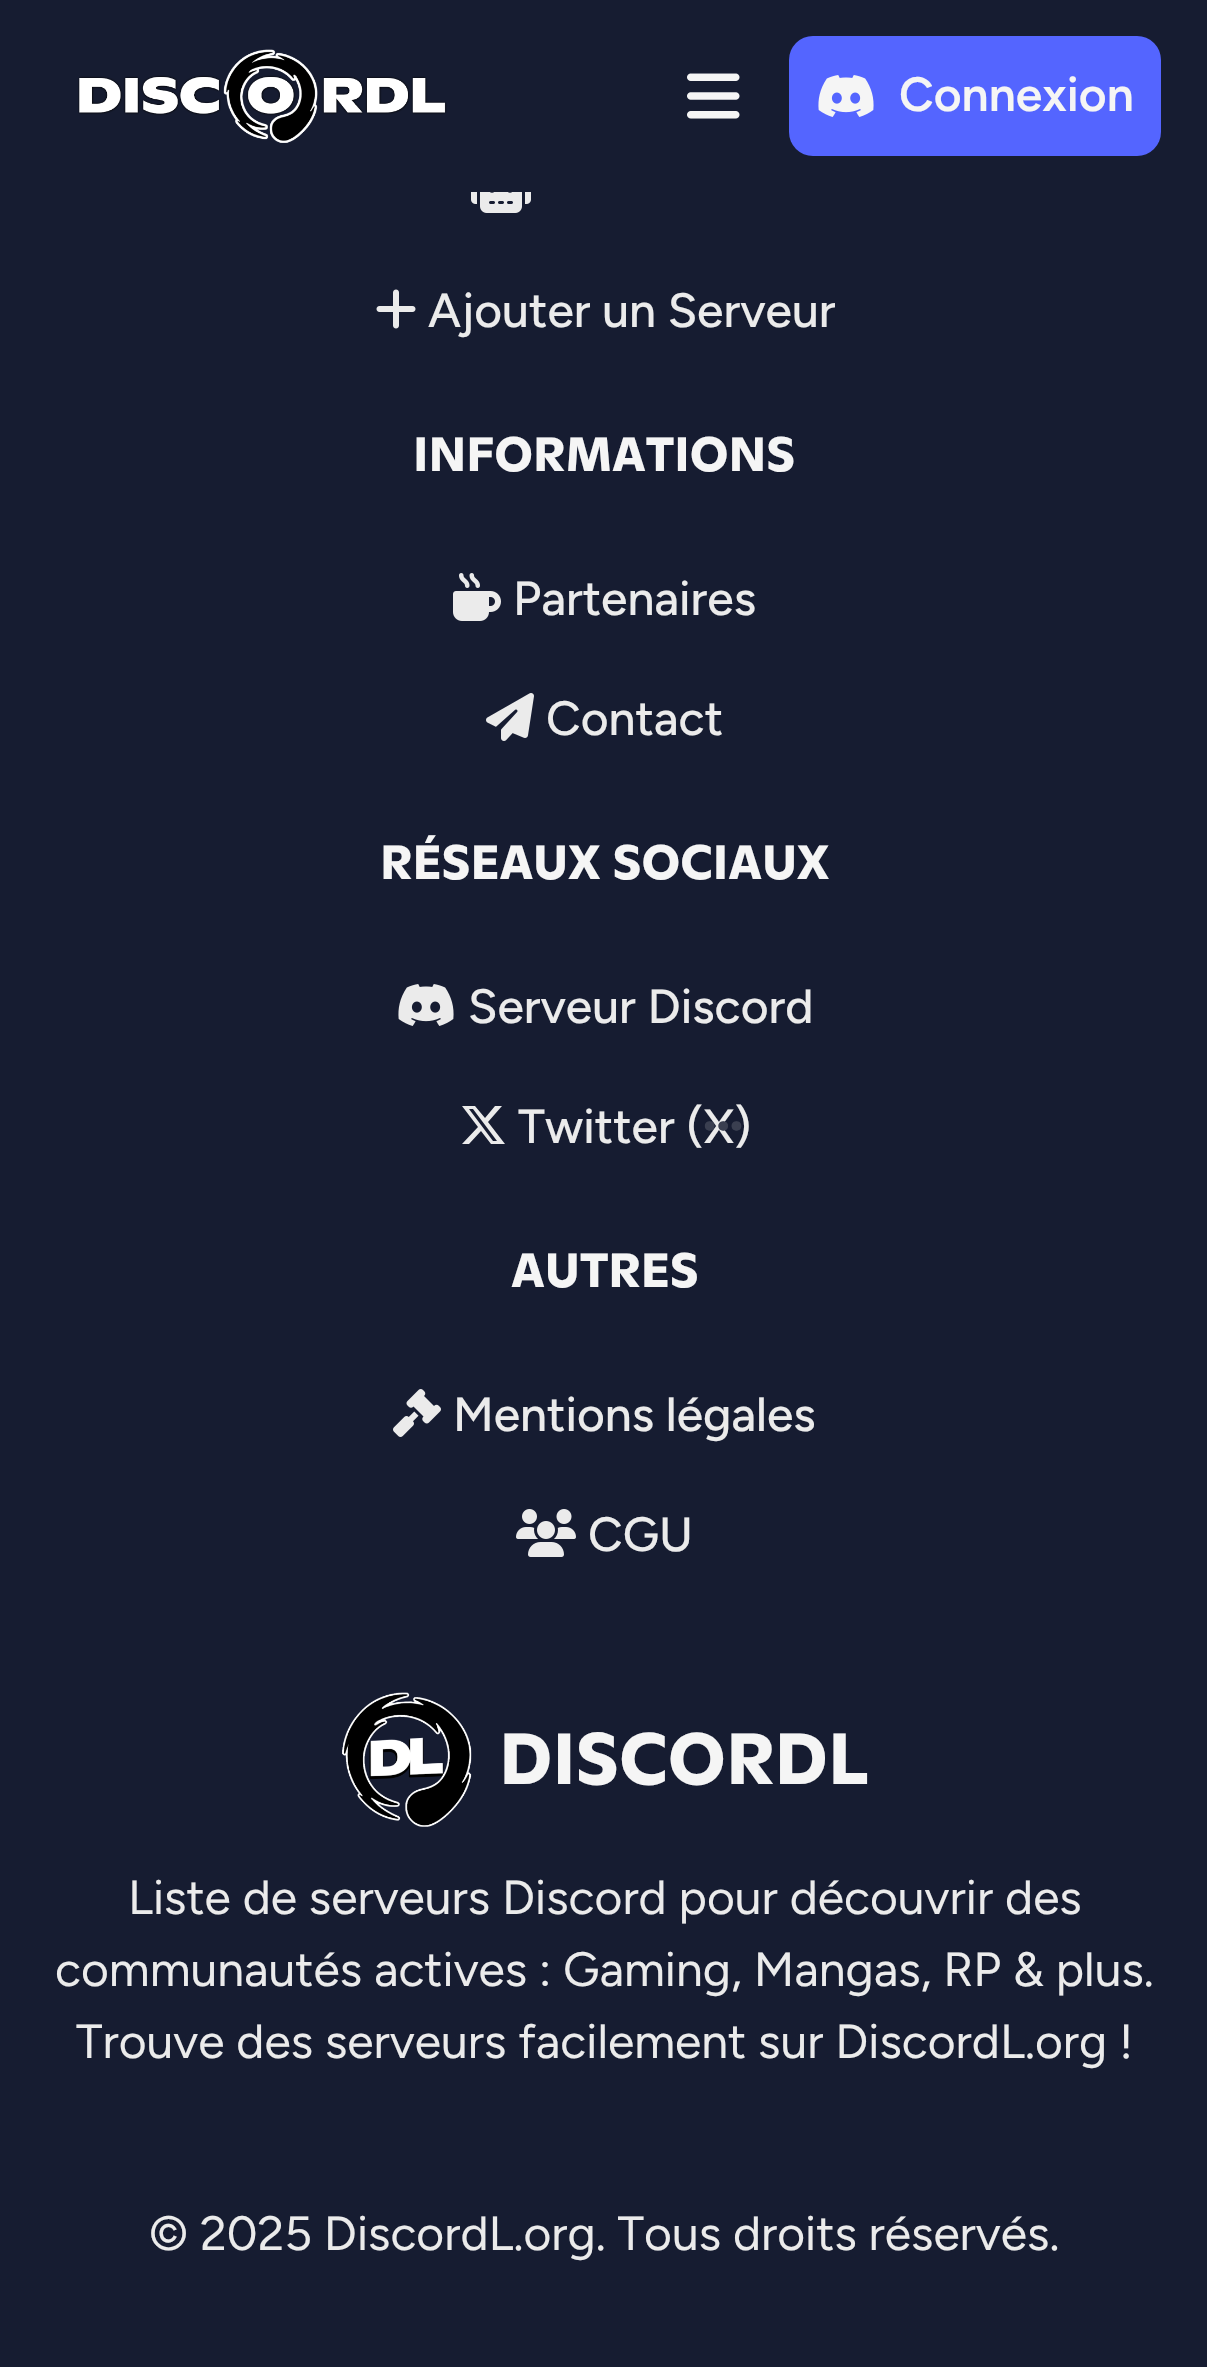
void draw(SkCanvas* canvas) {
    SkPaint paint;
    paint.setAntiAlias(true);
    auto face = [&](const char* family, int weight, float size, bool italic = false) {
        SkFontStyle style(weight, SkFontStyle::kNormal_Width,
            italic ? SkFontStyle::kItalic_Slant : SkFontStyle::kUpright_Slant);
        SkFont result(fontMgr->matchFamilyStyle(family, style), size);
        result.setSubpixel(true);
        return result;
    };
    auto write = [&](const char* s, float x, float y, const SkFont& font, SkColor color) {
        SkPaint ink(SkColor4f::FromColor(color));
        ink.setAntiAlias(true);
        canvas->drawString(s, x, y, font, ink);
    };
    auto card = [&](float x, float y, float w, float h, float radius, SkColor color) {
        SkPaint ink(SkColor4f::FromColor(color));
        ink.setAntiAlias(true);
        canvas->drawRoundRect(SkRect::MakeXYWH(x, y, w, h), radius, radius, ink);
    };
    auto paste = [&](const char* path, float x, float y, float w, float h) {
        auto image = SkImages::DeferredFromEncodedData(SkData::MakeFromFileName(path));
        canvas->drawImageRect(image, SkRect::MakeXYWH(x, y, w, h), SkSamplingOptions());
    };
    canvas->clear(SkColorSetRGB(22, 28, 49));
    paste("pic1.png", 78, 49, 369, 94);
    paste("pic2.png", 687, 73, 53, 46);
    card(789, 36, 372, 120, 24, SkColorSetRGB(84, 101, 255));
    paste("pic3.png", 818, 75, 56, 42);
    auto kFont1 = face("Figtree", 600, 48);
    write("Connexion", 899, 111, kFont1, SkColorSetRGB(245, 245, 245));
    paste("pic4.png", 471, 192, 60, 21);
    paste("pic5.png", 376, 289, 40, 40);
    auto kFont2 = face("Figtree", 500, 48);
    write("Ajouter un Serveur", 428, 327, kFont2, SkColorSetRGB(235, 235, 235));
    auto kFont3 = face("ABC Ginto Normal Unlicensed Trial", 700, 48);
    write("INFORMATIONS", 413, 471, kFont3, SkColorSetRGB(245, 245, 245));
    paste("pic6.png", 453, 573, 48, 48);
    write("Partenaires", 513, 615, kFont2, SkColorSetRGB(235, 235, 235));
    paste("pic7.png", 486, 693, 48, 48);
    write("Contact", 546, 735, kFont2, SkColorSetRGB(235, 235, 235));
    write("RÉSEAUX SOCIAUX", 380, 879, kFont3, SkColorSetRGB(245, 245, 245));
    paste("pic8.png", 398, 984, 56, 42);
    write("Serveur Discord", 468, 1023, kFont2, SkColorSetRGB(235, 235, 235));
    paint.setColor(SkColorSetRGB(235, 235, 235));
    canvas->drawPath(SkPathBuilder().moveTo(495, 1106).lineTo(502, 1106).lineTo(488, 1122).lineTo(505, 1144).lineTo(491, 1144).lineTo(481, 1131).lineTo(469, 1144).lineTo(462, 1144).lineTo(478, 1127).lineTo(462, 1106).lineTo(475, 1106).lineTo(485, 1118).close().moveTo(493, 1141).lineTo(497, 1141).lineTo(473, 1109).lineTo(469, 1109).close().detach(), paint);
    write("Twitter (X)", 518, 1143, kFont2, SkColorSetRGB(235, 235, 235));
    write("AUTRES", 511, 1287, kFont3, SkColorSetRGB(245, 245, 245));
    paste("pic9.png", 393, 1389, 48, 48);
    write("Mentions légales", 453, 1431, kFont2, SkColorSetRGB(235, 235, 235));
    paste("pic10.png", 516, 1509, 60, 48);
    write("CGU", 588, 1551, kFont2, SkColorSetRGB(235, 235, 235));
    paste("pic11.png", 342, 1692, 130, 135);
    auto kFont4 = face("ABC Ginto Normal Unlicensed Trial", 700, 72);
    write("DISCORDL", 499, 1784, kFont4, SkColorSetRGB(245, 245, 245));
    auto kFont5 = face("Figtree", 400, 48);
    write("Liste de serveurs Discord pour découvrir des", 128, 1914, kFont5, SkColorSetRGB(235, 235, 235));
    write("communautés actives : Gaming, Mangas, RP & plus.", 55, 1986, kFont5, SkColorSetRGB(235, 235, 235));
    write("Trouve des serveurs facilement sur DiscordL.org !", 76, 2058, kFont5, SkColorSetRGB(235, 235, 235));
    write("© 2025 DiscordL.org. Tous droits réservés.", 149, 2250, kFont5, SkColorSetRGB(235, 235, 235));
    auto kFont6 = face("ABC Ginto Normal Unlicensed Trial", 700, 49);
    write("...", 703, 1130, kFont6, SkColorSetRGB(58, 63, 80));
}
